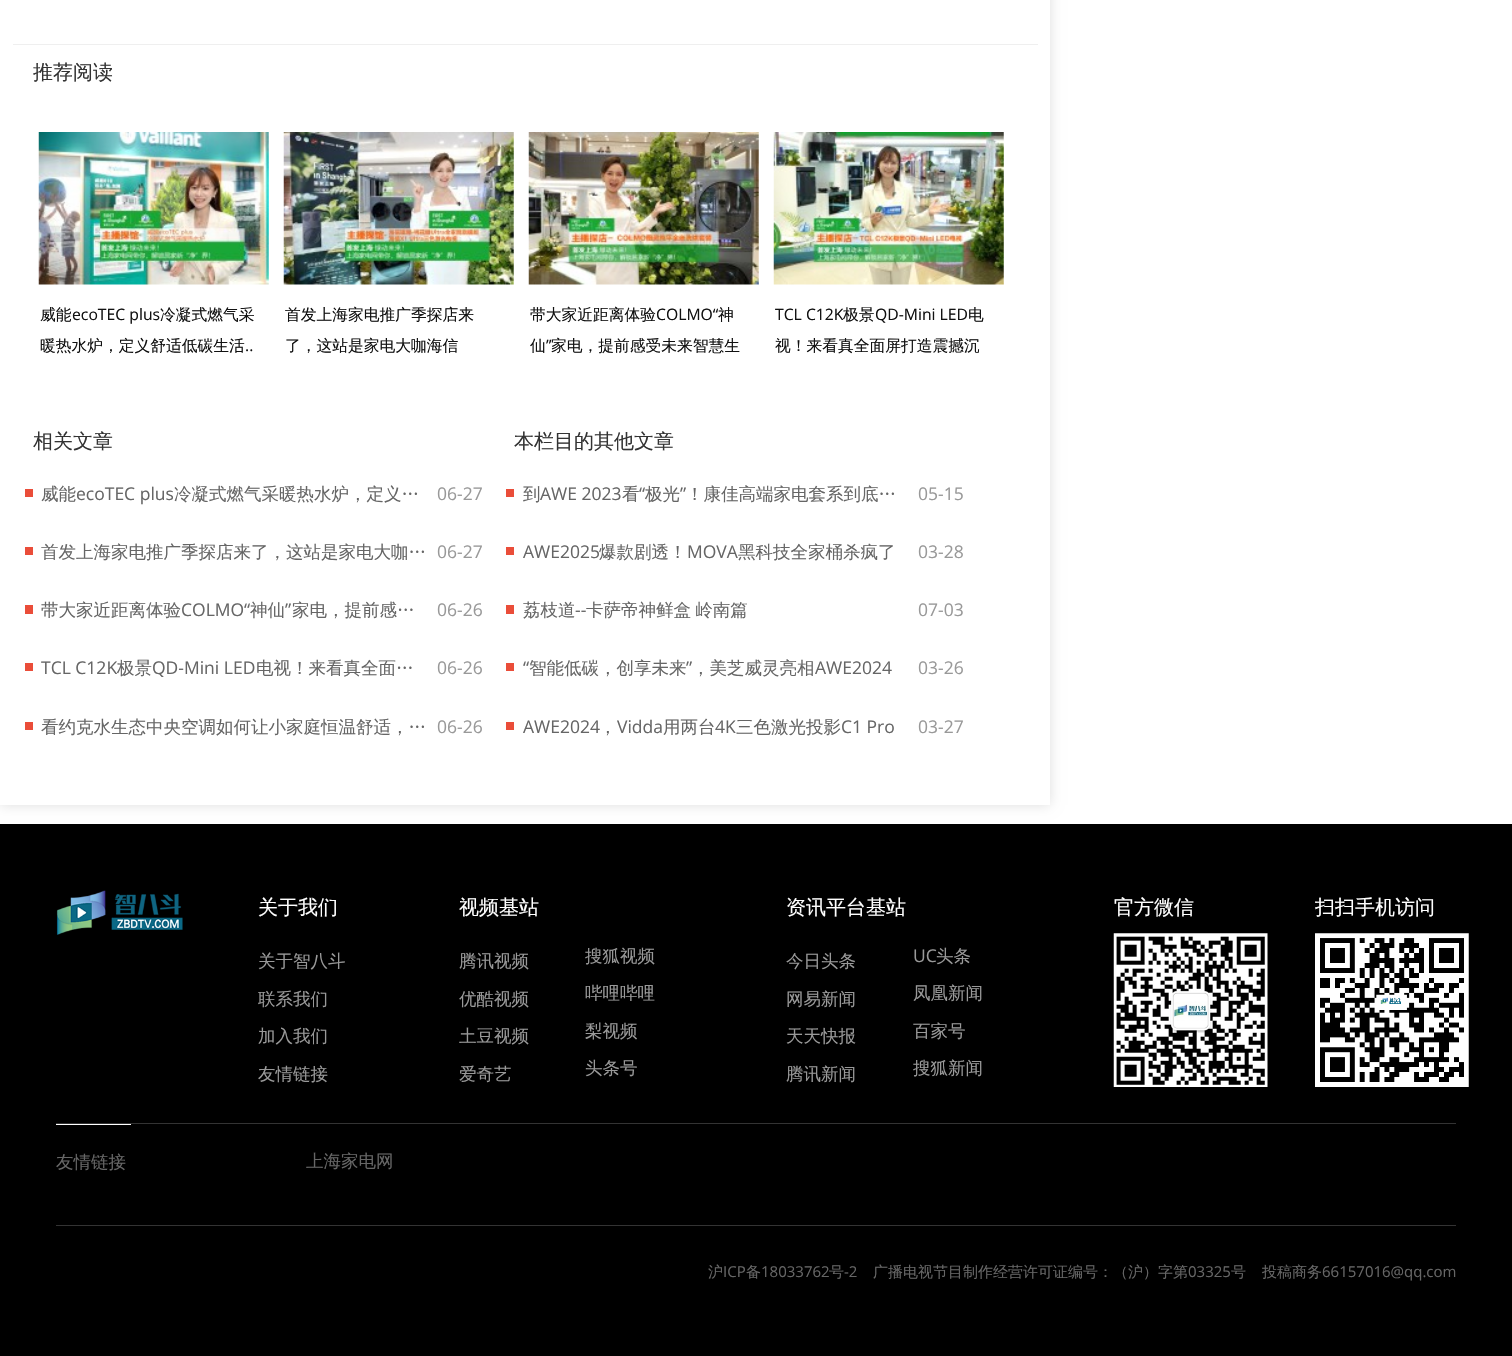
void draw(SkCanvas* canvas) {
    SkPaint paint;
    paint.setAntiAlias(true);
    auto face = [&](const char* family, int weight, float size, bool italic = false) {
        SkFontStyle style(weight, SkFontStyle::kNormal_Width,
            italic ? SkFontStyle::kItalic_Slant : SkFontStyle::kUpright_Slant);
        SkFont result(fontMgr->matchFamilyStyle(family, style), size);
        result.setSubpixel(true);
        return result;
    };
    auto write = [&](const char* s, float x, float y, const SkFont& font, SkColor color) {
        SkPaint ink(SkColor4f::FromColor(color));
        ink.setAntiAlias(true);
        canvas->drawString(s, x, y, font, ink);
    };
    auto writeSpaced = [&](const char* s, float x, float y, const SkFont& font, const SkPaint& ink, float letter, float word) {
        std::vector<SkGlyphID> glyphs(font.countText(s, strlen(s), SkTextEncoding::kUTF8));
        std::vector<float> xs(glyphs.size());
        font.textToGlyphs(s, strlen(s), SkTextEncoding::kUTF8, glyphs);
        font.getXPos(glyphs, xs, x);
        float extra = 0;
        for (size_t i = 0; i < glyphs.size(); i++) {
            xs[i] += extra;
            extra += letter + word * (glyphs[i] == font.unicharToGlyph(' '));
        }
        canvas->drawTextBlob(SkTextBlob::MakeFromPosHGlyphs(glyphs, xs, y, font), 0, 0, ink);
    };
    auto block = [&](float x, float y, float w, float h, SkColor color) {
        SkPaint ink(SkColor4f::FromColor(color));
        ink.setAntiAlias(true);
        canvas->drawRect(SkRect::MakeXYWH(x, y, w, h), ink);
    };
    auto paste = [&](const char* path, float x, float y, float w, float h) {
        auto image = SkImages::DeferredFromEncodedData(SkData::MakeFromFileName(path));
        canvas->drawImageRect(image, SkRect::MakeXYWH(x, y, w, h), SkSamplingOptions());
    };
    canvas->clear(SK_ColorWHITE);
    canvas->save();
    canvas->clipPath(SkPathBuilder(SkPathFillType::kEvenOdd).moveTo(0, 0).lineTo(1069, 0).lineTo(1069, 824).lineTo(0, 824).close().moveTo(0, -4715).lineTo(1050, -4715).lineTo(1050, 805).lineTo(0, 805).close().detach(), true);
    paint.setColor(SkColorSetRGB(222, 222, 222));
    paint.setMaskFilter(SkMaskFilter::MakeBlur(kNormal_SkBlurStyle, 6));
    canvas->drawRect(SkRect::MakeXYWH(0, -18, 1050, 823), paint);
    paint.setMaskFilter(nullptr);
    canvas->restore();
    block(13, 44, 1025, 1, SkColorSetRGB(239, 239, 239));
    auto kFont1 = face("WenQuanYi Zen Hei", 500, 20);
    write("推荐阅读", 33, 79, kFont1, SkColorSetRGB(51, 51, 51));
    paste("pic1.png", 38, 132, 231, 153);
    auto kFont2 = face("WenQuanYi Zen Hei", 500, 15.75f);
    write("威能", 40, 320, kFont2, SkColorSetRGB(17, 17, 17));
    auto kFont3 = face("Open Sans", 400, 15.75f);
    write("ecoTEC plus", 72, 320, kFont3, SkColorSetRGB(17, 17, 17));
    write("冷凝式燃气采", 160, 320, kFont2, SkColorSetRGB(17, 17, 17));
    write("暖热水炉，定义舒适低碳生活", 40, 351, kFont2, SkColorSetRGB(17, 17, 17));
    write("..", 245, 351, kFont3, SkColorSetRGB(17, 17, 17));
    paste("pic2.png", 283, 132, 231, 153);
    write("首发上海家电推广季探店来", 285, 320, kFont2, SkColorSetRGB(17, 17, 17));
    write("了，这站是家电大咖海信", 285, 351, kFont2, SkColorSetRGB(17, 17, 17));
    paste("pic3.png", 528, 132, 231, 153);
    write("带大家近距离体验", 530, 320, kFont2, SkColorSetRGB(17, 17, 17));
    write("COLMO“", 656, 320, kFont3, SkColorSetRGB(17, 17, 17));
    write("神", 718, 320, kFont2, SkColorSetRGB(17, 17, 17));
    write("仙", 530, 351, kFont2, SkColorSetRGB(17, 17, 17));
    write("”", 546, 351, kFont3, SkColorSetRGB(17, 17, 17));
    write("家电，提前感受未来智慧生", 551, 351, kFont2, SkColorSetRGB(17, 17, 17));
    paste("pic4.png", 773, 132, 231, 153);
    write("TCL C12K", 775, 320, kFont3, SkColorSetRGB(17, 17, 17));
    write("极景", 843, 320, kFont2, SkColorSetRGB(17, 17, 17));
    write("QD-Mini LED", 875, 320, kFont3, SkColorSetRGB(17, 17, 17));
    write("电", 968, 320, kFont2, SkColorSetRGB(17, 17, 17));
    write("视！来看真全面屏打造震撼沉", 775, 351, kFont2, SkColorSetRGB(17, 17, 17));
    write("相关文章", 33, 448, kFont1, SkColorSetRGB(51, 51, 51));
    block(25, 489, 8, 8, SkColorSetRGB(234, 77, 57));
    auto kFont4 = face("WenQuanYi Zen Hei", 500, 17.5f);
    write("威能", 41, 500, kFont4, SkColorSetRGB(102, 102, 102));
    auto kFont5 = face("Open Sans", 400, 17.5f);
    write("ecoTEC plus", 76, 500, kFont5, SkColorSetRGB(102, 102, 102));
    write("冷凝式燃气采暖热水炉，定义…", 174, 500, kFont4, SkColorSetRGB(102, 102, 102));
    write("06-27", 437, 500, kFont5, SkColorSetRGB(153, 153, 153));
    block(25, 547, 8, 8, SkColorSetRGB(234, 77, 57));
    write("首发上海家电推广季探店来了，这站是家电大咖…", 41, 558, kFont4, SkColorSetRGB(102, 102, 102));
    write("06-27", 437, 558, kFont5, SkColorSetRGB(153, 153, 153));
    block(25, 605, 8, 9, SkColorSetRGB(234, 77, 57));
    write("带大家近距离体验", 41, 616, kFont4, SkColorSetRGB(102, 102, 102));
    write("COLMO“", 181, 616, kFont5, SkColorSetRGB(102, 102, 102));
    write("神仙", 250, 616, kFont4, SkColorSetRGB(102, 102, 102));
    write("”", 285, 616, kFont5, SkColorSetRGB(102, 102, 102));
    write("家电，提前感…", 292, 616, kFont4, SkColorSetRGB(102, 102, 102));
    write("06-26", 437, 616, kFont5, SkColorSetRGB(153, 153, 153));
    block(25, 663, 8, 8, SkColorSetRGB(234, 77, 57));
    write("TCL C12K", 41, 674, kFont5, SkColorSetRGB(102, 102, 102));
    write("极景", 117, 674, kFont4, SkColorSetRGB(102, 102, 102));
    write("QD-Mini LED", 152, 674, kFont5, SkColorSetRGB(102, 102, 102));
    write("电视！来看真全面…", 256, 674, kFont4, SkColorSetRGB(102, 102, 102));
    write("06-26", 437, 674, kFont5, SkColorSetRGB(153, 153, 153));
    block(25, 722, 8, 8, SkColorSetRGB(234, 77, 57));
    write("看约克水生态中央空调如何让小家庭恒温舒适，…", 41, 733, kFont4, SkColorSetRGB(102, 102, 102));
    write("06-26", 437, 733, kFont5, SkColorSetRGB(153, 153, 153));
    write("本栏目的其他文章", 514, 448, kFont1, SkColorSetRGB(51, 51, 51));
    block(506, 489, 8, 8, SkColorSetRGB(234, 77, 57));
    write("到", 523, 500, kFont4, SkColorSetRGB(102, 102, 102));
    write("AWE 2023", 540, 500, kFont5, SkColorSetRGB(102, 102, 102));
    write("看", 622, 500, kFont4, SkColorSetRGB(102, 102, 102));
    write("“", 639, 500, kFont5, SkColorSetRGB(102, 102, 102));
    write("极光", 645, 500, kFont4, SkColorSetRGB(102, 102, 102));
    write("”", 680, 500, kFont5, SkColorSetRGB(102, 102, 102));
    write("！康佳高端家电套系到底…", 686, 500, kFont4, SkColorSetRGB(102, 102, 102));
    write("05-15", 918, 500, kFont5, SkColorSetRGB(153, 153, 153));
    block(506, 547, 8, 8, SkColorSetRGB(234, 77, 57));
    write("AWE2025", 523, 558, kFont5, SkColorSetRGB(102, 102, 102));
    write("爆款剧透！", 599, 558, kFont4, SkColorSetRGB(102, 102, 102));
    write("MOVA", 687, 558, kFont5, SkColorSetRGB(102, 102, 102));
    write("黑科技全家桶杀疯了", 738, 558, kFont4, SkColorSetRGB(102, 102, 102));
    write("03-28", 918, 558, kFont5, SkColorSetRGB(153, 153, 153));
    block(506, 605, 8, 9, SkColorSetRGB(234, 77, 57));
    write("荔枝道", 523, 616, kFont4, SkColorSetRGB(102, 102, 102));
    write("--", 575, 616, kFont5, SkColorSetRGB(102, 102, 102));
    paint.setColor(SkColorSetRGB(102, 102, 102));
    writeSpaced("卡萨帝神鲜盒 岭南篇", 586, 616, kFont4, paint, 0, -1);
    write("07-03", 918, 616, kFont5, SkColorSetRGB(153, 153, 153));
    block(506, 663, 8, 8, SkColorSetRGB(234, 77, 57));
    write("“", 523, 674, kFont5, SkColorSetRGB(102, 102, 102));
    write("智能低碳，创享未来", 529, 674, kFont4, SkColorSetRGB(102, 102, 102));
    write("”", 686, 674, kFont5, SkColorSetRGB(102, 102, 102));
    write("，美芝威灵亮相", 692, 674, kFont4, SkColorSetRGB(102, 102, 102));
    write("AWE2024", 815, 674, kFont5, SkColorSetRGB(102, 102, 102));
    write("03-26", 918, 674, kFont5, SkColorSetRGB(153, 153, 153));
    block(506, 722, 8, 8, SkColorSetRGB(234, 77, 57));
    write("AWE2024", 523, 733, kFont5, SkColorSetRGB(102, 102, 102));
    write("，", 599, 733, kFont4, SkColorSetRGB(102, 102, 102));
    write("Vidda", 617, 733, kFont5, SkColorSetRGB(102, 102, 102));
    write("用两台", 663, 733, kFont4, SkColorSetRGB(102, 102, 102));
    write("4K", 715, 733, kFont5, SkColorSetRGB(102, 102, 102));
    write("三色激光投影", 736, 733, kFont4, SkColorSetRGB(102, 102, 102));
    write("C1 Pro", 841, 733, kFont5, SkColorSetRGB(102, 102, 102));
    write("03-27", 918, 733, kFont5, SkColorSetRGB(153, 153, 153));
    block(0, 824, 1512, 532, SK_ColorBLACK);
    block(56, 1123, 1400, 1, SkColorSetRGB(51, 51, 51));
    paste("pic5.png", 56, 890, 127, 45);
    write("关于我们", 258, 914, kFont1, SK_ColorWHITE);
    write("关于智八斗", 258, 967, kFont4, SkColorSetRGB(153, 153, 153));
    write("联系我们", 258, 1005, kFont4, SkColorSetRGB(153, 153, 153));
    write("加入我们", 258, 1042, kFont4, SkColorSetRGB(153, 153, 153));
    write("友情链接", 258, 1080, kFont4, SkColorSetRGB(153, 153, 153));
    write("视频基站", 459, 914, kFont1, SK_ColorWHITE);
    write("腾讯视频", 459, 967, kFont4, SkColorSetRGB(153, 153, 153));
    write("优酷视频", 459, 1005, kFont4, SkColorSetRGB(153, 153, 153));
    write("土豆视频", 459, 1042, kFont4, SkColorSetRGB(153, 153, 153));
    write("爱奇艺", 459, 1080, kFont4, SkColorSetRGB(153, 153, 153));
    write("资讯平台基站", 786, 914, kFont1, SK_ColorWHITE);
    write("今日头条", 786, 967, kFont4, SkColorSetRGB(153, 153, 153));
    write("网易新闻", 786, 1005, kFont4, SkColorSetRGB(153, 153, 153));
    write("天天快报", 786, 1042, kFont4, SkColorSetRGB(153, 153, 153));
    write("腾讯新闻", 786, 1080, kFont4, SkColorSetRGB(153, 153, 153));
    write("官方微信", 1114, 914, kFont1, SK_ColorWHITE);
    paste("pic6.png", 1113, 933, 155, 154);
    write("扫扫手机访问", 1315, 914, kFont1, SK_ColorWHITE);
    paste("pic7.png", 1315, 933, 154, 154);
    write("搜狐视频", 585, 962, kFont4, SkColorSetRGB(153, 153, 153));
    write("哔哩哔哩", 585, 999, kFont4, SkColorSetRGB(153, 153, 153));
    write("梨视频", 585, 1037, kFont4, SkColorSetRGB(153, 153, 153));
    write("头条号", 585, 1074, kFont4, SkColorSetRGB(153, 153, 153));
    write("UC", 913, 962, kFont5, SkColorSetRGB(153, 153, 153));
    write("头条", 936, 962, kFont4, SkColorSetRGB(153, 153, 153));
    write("凤凰新闻", 913, 999, kFont4, SkColorSetRGB(153, 153, 153));
    write("百家号", 913, 1037, kFont4, SkColorSetRGB(153, 153, 153));
    write("搜狐新闻", 913, 1074, kFont4, SkColorSetRGB(153, 153, 153));
    block(56, 1225, 1400, 1, SkColorSetRGB(51, 51, 51));
    block(56, 1124, 75, 1, SK_ColorWHITE);
    write("友情链接", 56, 1168, kFont4, SkColorSetRGB(102, 102, 102));
    write("上海家电网", 306, 1167, kFont4, SkColorSetRGB(102, 102, 102));
    auto kFont6 = face("WenQuanYi Zen Hei", 500, 15);
    write("沪", 708, 1277, kFont6, SkColorSetRGB(102, 102, 102));
    auto kFont7 = face("Open Sans", 400, 15);
    write("ICP", 723, 1277, kFont7, SkColorSetRGB(102, 102, 102));
    write("备", 746, 1277, kFont6, SkColorSetRGB(102, 102, 102));
    write("18033762", 761, 1277, kFont7, SkColorSetRGB(102, 102, 102));
    write("号", 829, 1277, kFont6, SkColorSetRGB(102, 102, 102));
    write("-2", 844, 1277, kFont7, SkColorSetRGB(102, 102, 102));
    write("广播电视节目制作经营许可证编号：（沪）字第", 873, 1277, kFont6, SkColorSetRGB(102, 102, 102));
    write("03325", 1188, 1277, kFont7, SkColorSetRGB(102, 102, 102));
    write("号", 1231, 1277, kFont6, SkColorSetRGB(102, 102, 102));
    write("投稿商务", 1262, 1277, kFont6, SkColorSetRGB(102, 102, 102));
    write("66157016@qq.com", 1322, 1277, kFont7, SkColorSetRGB(102, 102, 102));
}
